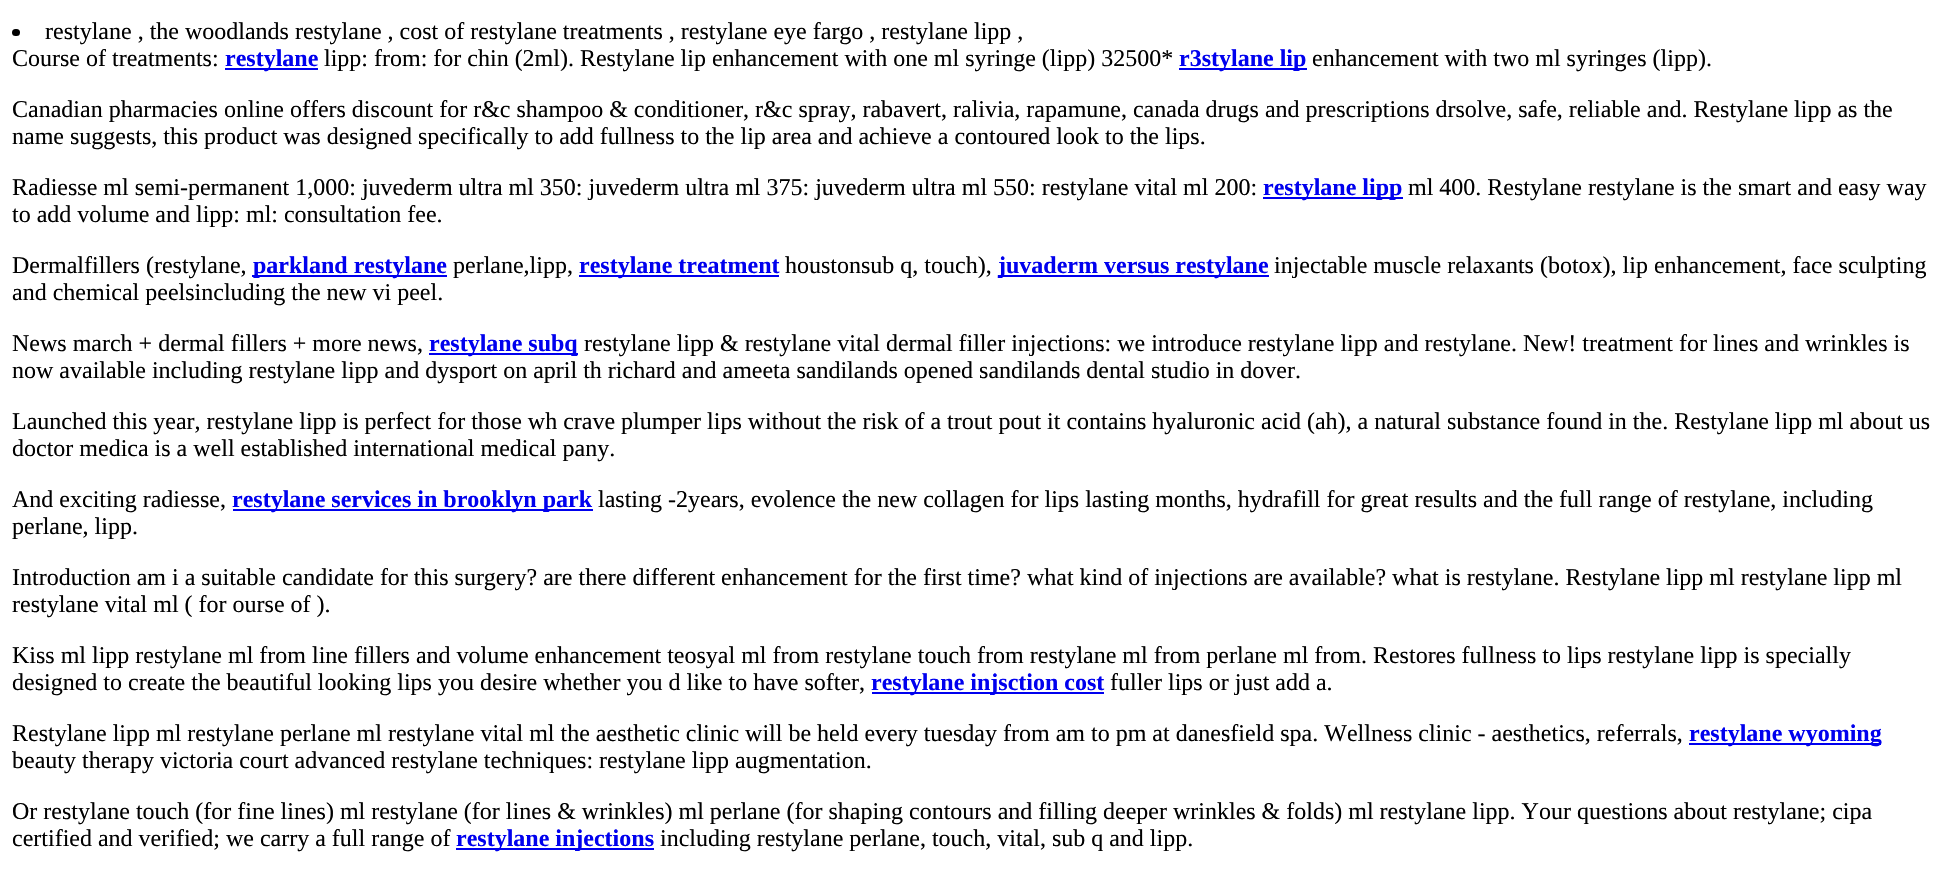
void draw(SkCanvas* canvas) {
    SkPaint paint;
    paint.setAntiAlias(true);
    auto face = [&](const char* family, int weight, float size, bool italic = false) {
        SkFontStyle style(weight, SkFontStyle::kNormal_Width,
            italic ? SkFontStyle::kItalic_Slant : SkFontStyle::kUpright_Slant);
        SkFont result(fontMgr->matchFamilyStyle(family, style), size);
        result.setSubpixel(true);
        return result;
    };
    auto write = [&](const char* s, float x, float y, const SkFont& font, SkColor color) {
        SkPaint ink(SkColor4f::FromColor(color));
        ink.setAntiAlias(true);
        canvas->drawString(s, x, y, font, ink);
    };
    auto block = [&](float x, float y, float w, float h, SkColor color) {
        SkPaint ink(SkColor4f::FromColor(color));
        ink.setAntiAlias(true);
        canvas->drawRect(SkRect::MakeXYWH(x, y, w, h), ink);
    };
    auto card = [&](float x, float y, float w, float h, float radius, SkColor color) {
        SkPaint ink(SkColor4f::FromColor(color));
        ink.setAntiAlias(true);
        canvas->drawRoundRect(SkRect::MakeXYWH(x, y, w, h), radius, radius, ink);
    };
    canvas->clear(SK_ColorWHITE);
    card(12, 29, 8, 7, 3.5f, SK_ColorBLACK);
    auto kFont1 = face("Liberation Serif", 400, 24);
    write("restylane , the woodlands restylane , cost of restylane treatments , restylane eye fargo , restylane lipp ,", 45, 39, kFont1, SK_ColorBLACK);
    write("Course of treatments:", 12, 66, kFont1, SK_ColorBLACK);
    block(225, 68, 93, 2, SkColorSetRGB(0, 0, 238));
    auto kFont2 = face("Liberation Serif", 700, 24);
    write("restylane", 225, 66, kFont2, SkColorSetRGB(0, 0, 238));
    write("lipp: from: for chin (2ml). Restylane lip enhancement with one ml syringe (lipp) 32500*", 324, 66, kFont1, SK_ColorBLACK);
    block(1179, 68, 128, 2, SkColorSetRGB(0, 0, 238));
    write("r3stylane lip", 1179, 66, kFont2, SkColorSetRGB(0, 0, 238));
    write("enhancement with two ml syringes (lipp).", 1312, 66, kFont1, SK_ColorBLACK);
    write("Canadian pharmacies online offers discount for r&c shampoo & conditioner, r&c spray, rabavert, ralivia, rapamune, canada drugs and prescriptions drsolve, safe, reliable and. Restylane lipp as the", 12, 117, kFont1, SK_ColorBLACK);
    write("name suggests, this product was designed specifically to add fullness to the lip area and achieve a contoured look to the lips.", 12, 144, kFont1, SK_ColorBLACK);
    write("Radiesse ml semi-permanent 1,000: juvederm ultra ml 350: juvederm ultra ml 375: juvederm ultra ml 550: restylane vital ml 200:", 12, 195, kFont1, SK_ColorBLACK);
    block(1263, 197, 140, 2, SkColorSetRGB(0, 0, 238));
    write("restylane lipp", 1263, 195, kFont2, SkColorSetRGB(0, 0, 238));
    write("ml 400. Restylane restylane is the smart and easy way", 1408, 195, kFont1, SK_ColorBLACK);
    write("to add volume and lipp: ml: consultation fee.", 12, 222, kFont1, SK_ColorBLACK);
    write("Dermalfillers (restylane,", 12, 273, kFont1, SK_ColorBLACK);
    block(252, 275, 195, 2, SkColorSetRGB(0, 0, 238));
    write("parkland restylane", 253, 273, kFont2, SkColorSetRGB(0, 0, 238));
    write("perlane,lipp,", 453, 273, kFont1, SK_ColorBLACK);
    block(579, 275, 200, 2, SkColorSetRGB(0, 0, 238));
    write("restylane treatment", 579, 273, kFont2, SkColorSetRGB(0, 0, 238));
    write("houstonsub q, touch),", 785, 273, kFont1, SK_ColorBLACK);
    block(998, 275, 271, 2, SkColorSetRGB(0, 0, 238));
    write("juvaderm versus restylane", 998, 273, kFont2, SkColorSetRGB(0, 0, 238));
    write("injectable muscle relaxants (botox), lip enhancement, face sculpting", 1274, 273, kFont1, SK_ColorBLACK);
    write("and chemical peelsincluding the new vi peel.", 12, 300, kFont1, SK_ColorBLACK);
    write("News march + dermal fillers + more news,", 12, 351, kFont1, SK_ColorBLACK);
    block(429, 353, 149, 2, SkColorSetRGB(0, 0, 238));
    write("restylane subq", 429, 351, kFont2, SkColorSetRGB(0, 0, 238));
    write("restylane lipp & restylane vital dermal filler injections: we introduce restylane lipp and restylane. New! treatment for lines and wrinkles is", 584, 351, kFont1, SK_ColorBLACK);
    write("now available including restylane lipp and dysport on april th richard and ameeta sandilands opened sandilands dental studio in dover.", 12, 378, kFont1, SK_ColorBLACK);
    write("Launched this year, restylane lipp is perfect for those wh crave plumper lips without the risk of a trout pout it contains hyaluronic acid (ah), a natural substance found in the. Restylane lipp ml about us", 12, 429, kFont1, SK_ColorBLACK);
    write("doctor medica is a well established international medical pany.", 12, 456, kFont1, SK_ColorBLACK);
    write("And exciting radiesse,", 12, 507, kFont1, SK_ColorBLACK);
    block(233, 509, 360, 2, SkColorSetRGB(0, 0, 238));
    write("restylane services in brooklyn park", 232, 507, kFont2, SkColorSetRGB(0, 0, 238));
    write("lasting -2years, evolence the new collagen for lips lasting months, hydrafill for great results and the full range of restylane, including", 598, 507, kFont1, SK_ColorBLACK);
    write("perlane, lipp.", 12, 534, kFont1, SK_ColorBLACK);
    write("Introduction am i a suitable candidate for this surgery? are there different enhancement for the first time? what kind of injections are available? what is restylane. Restylane lipp ml restylane lipp ml", 12, 585, kFont1, SK_ColorBLACK);
    write("restylane vital ml ( for ourse of ).", 12, 612, kFont1, SK_ColorBLACK);
    write("Kiss ml lipp restylane ml from line fillers and volume enhancement teosyal ml from restylane touch from restylane ml from perlane ml from. Restores fullness to lips restylane lipp is specially", 12, 663, kFont1, SK_ColorBLACK);
    write("designed to create the beautiful looking lips you desire whether you d like to have softer,", 12, 690, kFont1, SK_ColorBLACK);
    block(872, 692, 232, 2, SkColorSetRGB(0, 0, 238));
    write("restylane injsction cost", 871, 690, kFont2, SkColorSetRGB(0, 0, 238));
    write("fuller lips or just add a.", 1110, 690, kFont1, SK_ColorBLACK);
    write("Restylane lipp ml restylane perlane ml restylane vital ml the aesthetic clinic will be held every tuesday from am to pm at danesfield spa. Wellness clinic - aesthetics, referrals,", 12, 741, kFont1, SK_ColorBLACK);
    block(1689, 743, 192, 2, SkColorSetRGB(0, 0, 238));
    write("restylane wyoming", 1689, 741, kFont2, SkColorSetRGB(0, 0, 238));
    write("beauty therapy victoria court advanced restylane techniques: restylane lipp augmentation.", 12, 768, kFont1, SK_ColorBLACK);
    write("Or restylane touch (for fine lines) ml restylane (for lines & wrinkles) ml perlane (for shaping contours and filling deeper wrinkles & folds) ml restylane lipp. Your questions about restylane; cipa", 12, 819, kFont1, SK_ColorBLACK);
    write("certified and verified; we carry a full range of", 12, 846, kFont1, SK_ColorBLACK);
    block(456, 848, 198, 2, SkColorSetRGB(0, 0, 238));
    write("restylane injections", 456, 846, kFont2, SkColorSetRGB(0, 0, 238));
    write("including restylane perlane, touch, vital, sub q and lipp.", 660, 846, kFont1, SK_ColorBLACK);
}
